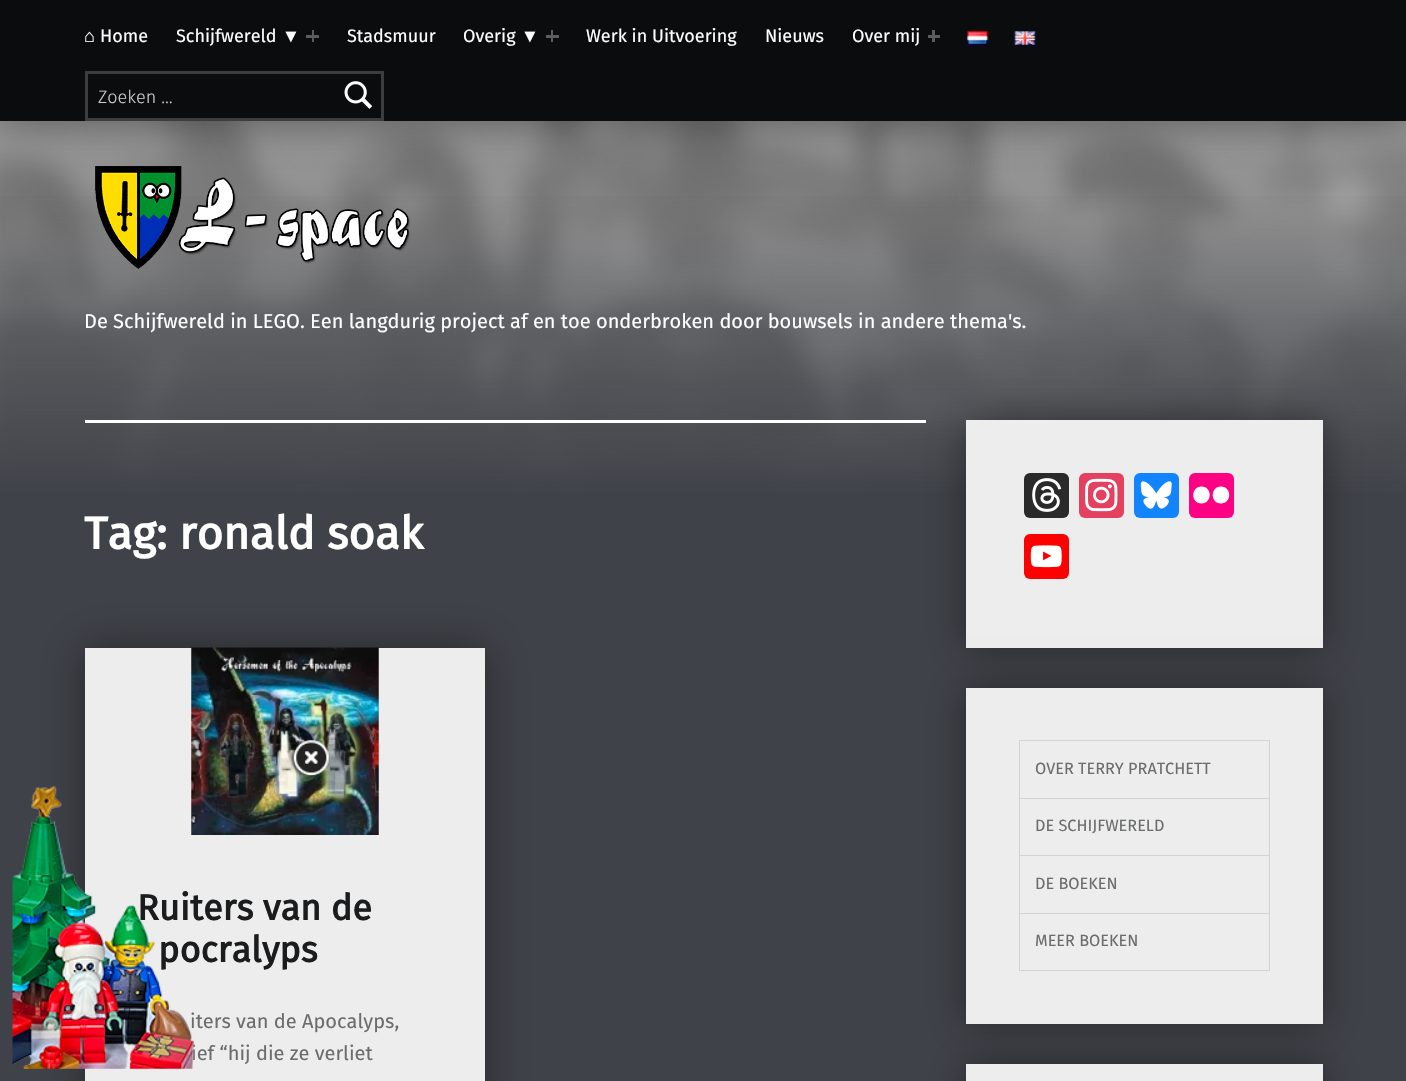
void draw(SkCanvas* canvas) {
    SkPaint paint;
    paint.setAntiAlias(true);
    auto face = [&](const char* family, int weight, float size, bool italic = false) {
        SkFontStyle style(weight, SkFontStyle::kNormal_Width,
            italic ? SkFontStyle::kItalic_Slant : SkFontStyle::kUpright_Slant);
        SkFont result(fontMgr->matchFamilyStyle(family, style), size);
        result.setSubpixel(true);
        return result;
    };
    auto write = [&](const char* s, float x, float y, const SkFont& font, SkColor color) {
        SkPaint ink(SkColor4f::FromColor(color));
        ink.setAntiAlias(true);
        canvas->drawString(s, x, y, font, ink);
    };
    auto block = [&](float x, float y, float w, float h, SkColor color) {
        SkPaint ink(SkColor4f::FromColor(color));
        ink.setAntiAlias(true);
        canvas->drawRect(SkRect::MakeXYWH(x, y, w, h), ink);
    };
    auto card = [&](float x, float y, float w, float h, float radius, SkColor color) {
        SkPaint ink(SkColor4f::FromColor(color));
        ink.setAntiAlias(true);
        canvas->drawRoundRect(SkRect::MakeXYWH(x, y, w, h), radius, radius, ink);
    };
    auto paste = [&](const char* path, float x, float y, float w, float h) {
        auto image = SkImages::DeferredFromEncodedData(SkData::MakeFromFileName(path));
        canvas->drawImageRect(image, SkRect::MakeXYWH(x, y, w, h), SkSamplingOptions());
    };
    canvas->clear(SkColorSetRGB(64, 66, 73));
    block(0, 121, 1406, 372, SkColorSetRGB(147, 147, 147));
    paste("pic5.png", 0, 121, 1406, 372);
    {
        const SkColor colors[] = {SkColorSetARGB(0, 64, 66, 73), SkColorSetRGB(64, 66, 73)};
        const float stops[] = {0, 1};
        const SkPoint ends[] = {{703, 187}, {703, 495}};
        paint.setShader(SkGradientShader::MakeLinear(ends, colors, stops, 2, SkTileMode::kClamp));
        paint.setAlpha(255);
    }
    canvas->drawRect(SkRect::MakeXYWH(0, 196, 1406, 297), paint);
    paste("pic4.png", 95, 166, 316, 103);
    paint.setShader(nullptr);
    paint.setColor(SkColorSetARGB(102, 0, 0, 0));
    paint.setMaskFilter(SkMaskFilter::MakeBlur(kNormal_SkBlurStyle, 20));
    canvas->drawRect(SkRect::MakeXYWH(0, 0, 1406, 121), paint);
    paint.setMaskFilter(nullptr);
    block(0, 0, 1406, 121, SkColorSetRGB(10, 12, 14));
    auto kFont1 = face("Liberation Sans", 400, 18);
    write("⌂", 84, 42, kFont1, SK_ColorWHITE);
    auto kFont2 = face("Fira Sans", 400, 18);
    write("Home", 100, 42, kFont2, SK_ColorWHITE);
    write("Schijfwereld", 176, 42, kFont2, SK_ColorWHITE);
    write("▼", 282, 42, kFont1, SK_ColorWHITE);
    block(306, 35, 13, 3, SkColorSetRGB(91, 92, 94));
    block(312, 30, 2, 12, SkColorSetRGB(91, 92, 94));
    write("Stadsmuur", 347, 42, kFont2, SK_ColorWHITE);
    write("Overig", 463, 42, kFont2, SK_ColorWHITE);
    write("▼", 521, 42, kFont1, SK_ColorWHITE);
    block(546, 35, 13, 3, SkColorSetRGB(91, 92, 94));
    block(551, 30, 2, 12, SkColorSetRGB(91, 92, 94));
    write("Werk in Uitvoering", 586, 42, kFont2, SK_ColorWHITE);
    write("Nieuws", 765, 42, kFont2, SK_ColorWHITE);
    write("Over mij", 852, 42, kFont2, SK_ColorWHITE);
    block(928, 35, 12, 3, SkColorSetRGB(91, 92, 94));
    block(932, 30, 3, 12, SkColorSetRGB(91, 92, 94));
    paste("pic1.png", 967, 31, 22, 14);
    paste("pic2.png", 1014, 31, 22, 14);
    paint.setStyle(SkPaint::kStroke_Style);
    paint.setStrokeWidth(3);
    paint.setColor(SkColorSetRGB(59, 61, 62));
    canvas->drawRect(SkRect::MakeXYWH(86.5f, 72.5f, 296, 47), paint);
    auto kFont3 = face("Fira Sans", 300, 18);
    write("Zoeken …", 98, 103, kFont3, SkColorSetRGB(206, 206, 207));
    paste("pic3.png", 344, 81, 29, 28);
    auto kFont4 = face("Fira Sans", 400, 20);
    write("De Schijfwereld in LEGO. Een langdurig project af en toe onderbroken door bouwsels in andere thema's.", 84, 328, kFont4, SK_ColorWHITE);
    block(85, 420, 841, 3, SK_ColorWHITE);
    auto kFont5 = face("Fira Sans", 700, 45.5f);
    write("Tag: ronald soak", 84, 549, kFont5, SK_ColorWHITE);
    paint.setStyle(SkPaint::kFill_Style);
    paint.setColor(SkColorSetARGB(102, 0, 0, 0));
    paint.setMaskFilter(SkMaskFilter::MakeBlur(kNormal_SkBlurStyle, 20));
    canvas->drawRect(SkRect::MakeXYWH(85, 648, 400, 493), paint);
    paint.setMaskFilter(nullptr);
    block(85, 648, 400, 433, SkColorSetRGB(237, 237, 237));
    paste("pic6.png", 191, 647, 188, 188);
    auto kFont6 = face("Fira Sans", 700, 36);
    write("Ruiters van de", 137, 920, kFont6, SkColorSetRGB(26, 28, 30));
    write("pocralyps", 158, 962, kFont6, SkColorSetRGB(26, 28, 30));
    write("iters van de Apocalyps,", 190, 1028, kFont4, SkColorSetRGB(106, 108, 110));
    write("ief “hij die ze verliet", 191, 1060, kFont4, SkColorSetRGB(106, 108, 110));
    paint.setMaskFilter(SkMaskFilter::MakeBlur(kNormal_SkBlurStyle, 18));
    canvas->drawRect(SkRect::MakeXYWH(966, 420, 357, 228), paint);
    paint.setMaskFilter(nullptr);
    block(966, 420, 357, 228, SkColorSetRGB(237, 237, 237));
    card(1024, 473, 45, 45, 6, SkColorSetRGB(42, 42, 42));
    paste("pic7.png", 1032, 478, 30, 34);
    card(1079, 473, 45, 45, 6, SkColorSetRGB(228, 64, 95));
    paste("pic8.png", 1085, 478, 33, 34);
    card(1134, 473, 45, 45, 6, SkColorSetRGB(18, 133, 254));
    paste("pic9.png", 1140, 481, 32, 28);
    card(1189, 473, 45, 45, 6, SkColorSetRGB(255, 0, 132));
    paint.setColor(SK_ColorWHITE);
    canvas->drawPath(SkPathBuilder().moveTo(1221, 503.5f).cubicTo(1232, 503.5f, 1232, 486.5f, 1221, 486.5f).cubicTo(1210, 486.5f, 1210, 503.5f, 1221, 503.5f).moveTo(1201.5f, 503.5f).cubicTo(1212.5f, 503.5f, 1212.5f, 486.5f, 1201.5f, 486.5f).cubicTo(1190.5f, 486.5f, 1190.5f, 503.5f, 1201.5f, 503.5f).detach(), paint);
    card(1024, 534, 45, 45, 6, SkColorSetRGB(255, 0, 0));
    paste("pic10.png", 1030, 545, 32, 23);
    paint.setColor(SkColorSetARGB(102, 0, 0, 0));
    paint.setMaskFilter(SkMaskFilter::MakeBlur(kNormal_SkBlurStyle, 18));
    canvas->drawRect(SkRect::MakeXYWH(966, 688, 357, 336), paint);
    paint.setMaskFilter(nullptr);
    block(966, 688, 357, 336, SkColorSetRGB(237, 237, 237));
    paint.setStyle(SkPaint::kStroke_Style);
    paint.setStrokeWidth(1);
    paint.setColor(SkColorSetRGB(211, 211, 212));
    canvas->drawRect(SkRect::MakeXYWH(1019.5f, 740.5f, 250, 230), paint);
    auto kFont7 = face("Fira Sans", 400, 16.25f);
    write("OVER TERRY PRATCHETT", 1035, 774, kFont7, SkColorSetRGB(106, 108, 110));
    block(1020, 798, 249, 1, SkColorSetRGB(211, 211, 212));
    write("DE SCHIJFWERELD", 1035, 831, kFont7, SkColorSetRGB(106, 108, 110));
    block(1020, 855, 249, 1, SkColorSetRGB(211, 211, 212));
    write("DE BOEKEN", 1035, 889, kFont7, SkColorSetRGB(106, 108, 110));
    block(1020, 913, 249, 1, SkColorSetRGB(211, 211, 212));
    write("MEER BOEKEN", 1035, 946, kFont7, SkColorSetRGB(106, 108, 110));
    paint.setStyle(SkPaint::kFill_Style);
    paint.setColor(SkColorSetARGB(102, 0, 0, 0));
    paint.setMaskFilter(SkMaskFilter::MakeBlur(kNormal_SkBlurStyle, 18));
    canvas->drawRect(SkRect::MakeXYWH(966, 1064, 357, 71), paint);
    paint.setMaskFilter(nullptr);
    block(966, 1064, 357, 17, SkColorSetRGB(237, 237, 237));
    paste("pic11.png", 290, 739, 40, 40);
    paste("pic12.png", 12, 786, 182, 283);
}
